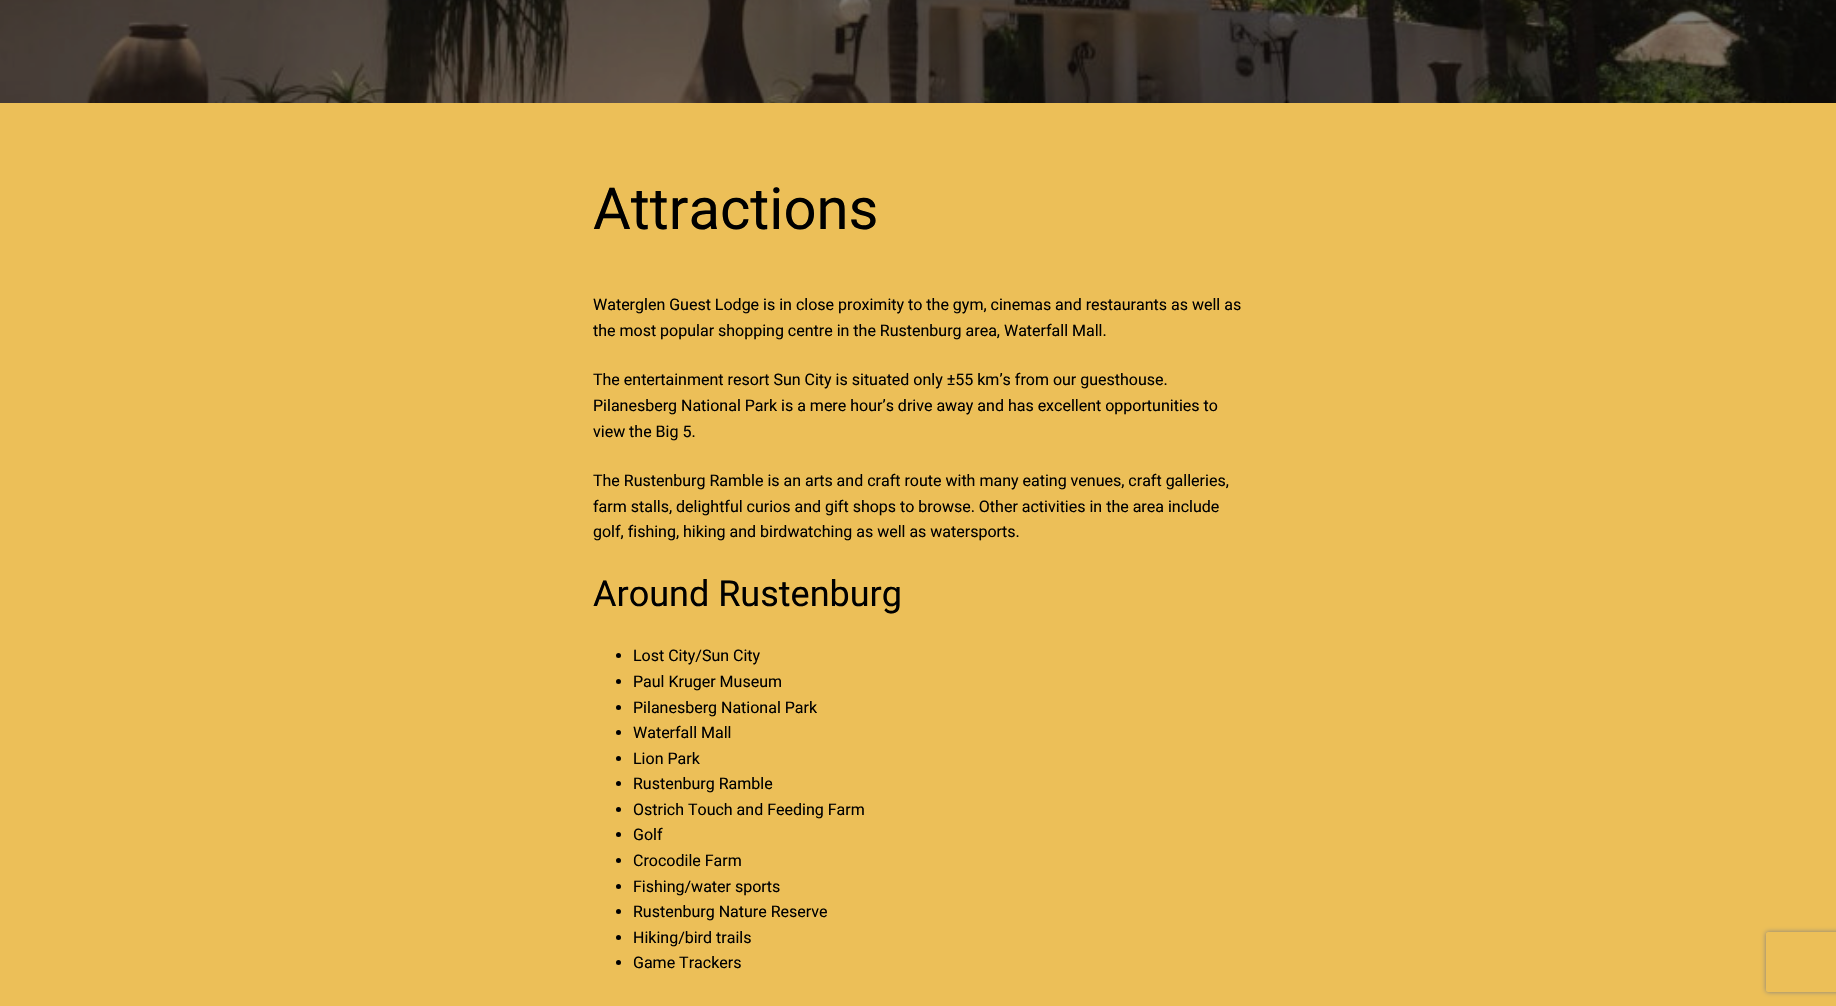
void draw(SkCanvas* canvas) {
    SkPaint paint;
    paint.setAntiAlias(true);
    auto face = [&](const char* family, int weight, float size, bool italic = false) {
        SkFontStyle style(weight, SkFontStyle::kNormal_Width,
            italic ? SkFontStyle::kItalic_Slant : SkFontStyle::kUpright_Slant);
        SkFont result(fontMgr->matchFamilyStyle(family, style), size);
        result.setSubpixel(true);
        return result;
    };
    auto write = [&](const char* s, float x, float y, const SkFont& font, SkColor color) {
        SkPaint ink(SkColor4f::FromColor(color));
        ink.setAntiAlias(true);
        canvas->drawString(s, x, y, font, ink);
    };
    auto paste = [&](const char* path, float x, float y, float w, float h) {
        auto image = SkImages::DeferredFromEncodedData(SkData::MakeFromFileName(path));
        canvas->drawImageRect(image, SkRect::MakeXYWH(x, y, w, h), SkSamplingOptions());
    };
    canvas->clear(SkColorSetRGB(236, 191, 88));
    paste("pic1.png", 0, 0, 1836, 103);
    auto kFont1 = face("Roboto", 400, 58);
    write("Attractions", 593, 229, kFont1, SK_ColorBLACK);
    auto kFont2 = face("Roboto", 400, 16);
    write("Waterglen Guest Lodge is in close proximity to the gym, cinemas and restaurants as well as", 593, 310, kFont2, SK_ColorBLACK);
    write("the most popular shopping centre in the Rustenburg area, Waterfall Mall.", 593, 336, kFont2, SK_ColorBLACK);
    write("The entertainment resort Sun City is situated only ±55 km’s from our guesthouse.", 593, 385, kFont2, SK_ColorBLACK);
    write("Pilanesberg National Park is a mere hour’s drive away and has excellent opportunities to", 593, 411, kFont2, SK_ColorBLACK);
    write("view the Big 5.", 593, 437, kFont2, SK_ColorBLACK);
    write("The Rustenburg Ramble is an arts and craft route with many eating venues, craft galleries,", 593, 486, kFont2, SK_ColorBLACK);
    write("farm stalls, delightful curios and gift shops to browse. Other activities in the area include", 593, 512, kFont2, SK_ColorBLACK);
    write("golf, fishing, hiking and birdwatching as well as watersports.", 593, 537, kFont2, SK_ColorBLACK);
    auto kFont3 = face("Roboto", 400, 36);
    write("Around Rustenburg", 593, 606, kFont3, SK_ColorBLACK);
    paint.setColor(SK_ColorBLACK);
    canvas->drawCircle(618.5f, 655.5f, 2.5f, paint);
    write("Lost City/Sun City", 633, 661, kFont2, SK_ColorBLACK);
    canvas->drawCircle(618.5f, 681.5f, 2.5f, paint);
    write("Paul Kruger Museum", 633, 687, kFont2, SK_ColorBLACK);
    canvas->drawCircle(618.5f, 707.5f, 2.5f, paint);
    write("Pilanesberg National Park", 633, 713, kFont2, SK_ColorBLACK);
    canvas->drawCircle(618.5f, 732.5f, 2.5f, paint);
    write("Waterfall Mall", 633, 738, kFont2, SK_ColorBLACK);
    canvas->drawCircle(618.5f, 758.5f, 2.5f, paint);
    write("Lion Park", 633, 764, kFont2, SK_ColorBLACK);
    canvas->drawCircle(618.5f, 783.5f, 2.5f, paint);
    write("Rustenburg Ramble", 633, 789, kFont2, SK_ColorBLACK);
    canvas->drawCircle(618.5f, 809.5f, 2.5f, paint);
    write("Ostrich Touch and Feeding Farm", 633, 815, kFont2, SK_ColorBLACK);
    canvas->drawCircle(618.5f, 834.5f, 2.5f, paint);
    write("Golf", 633, 840, kFont2, SK_ColorBLACK);
    canvas->drawCircle(618.5f, 860.5f, 2.5f, paint);
    write("Crocodile Farm", 633, 866, kFont2, SK_ColorBLACK);
    canvas->drawCircle(618.5f, 886.5f, 2.5f, paint);
    write("Fishing/water sports", 633, 892, kFont2, SK_ColorBLACK);
    canvas->drawCircle(618.5f, 911.5f, 2.5f, paint);
    write("Rustenburg Nature Reserve", 633, 917, kFont2, SK_ColorBLACK);
    canvas->drawCircle(618.5f, 937.5f, 2.5f, paint);
    write("Hiking/bird trails", 633, 943, kFont2, SK_ColorBLACK);
    canvas->drawCircle(618.5f, 962.5f, 2.5f, paint);
    write("Game Trackers", 633, 968, kFont2, SK_ColorBLACK);
    canvas->save();
    canvas->clipPath(SkPathBuilder(SkPathFillType::kEvenOdd).moveTo(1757, 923).lineTo(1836, 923).lineTo(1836, 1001).lineTo(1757, 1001).close().moveTo(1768, 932).lineTo(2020, 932).cubicTo(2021, 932, 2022, 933, 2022, 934).lineTo(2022, 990).cubicTo(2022, 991, 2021, 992, 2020, 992).lineTo(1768, 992).cubicTo(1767, 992, 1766, 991, 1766, 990).lineTo(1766, 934).cubicTo(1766, 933, 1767, 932, 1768, 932).close().detach(), true);
    paint.setColor(SkColorSetRGB(128, 128, 128));
    paint.setMaskFilter(SkMaskFilter::MakeBlur(kNormal_SkBlurStyle, 2.5f));
    canvas->drawRoundRect(SkRect::MakeXYWH(1766, 932, 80, 60), 2, 2, paint);
    paint.setMaskFilter(nullptr);
    canvas->restore();
}
